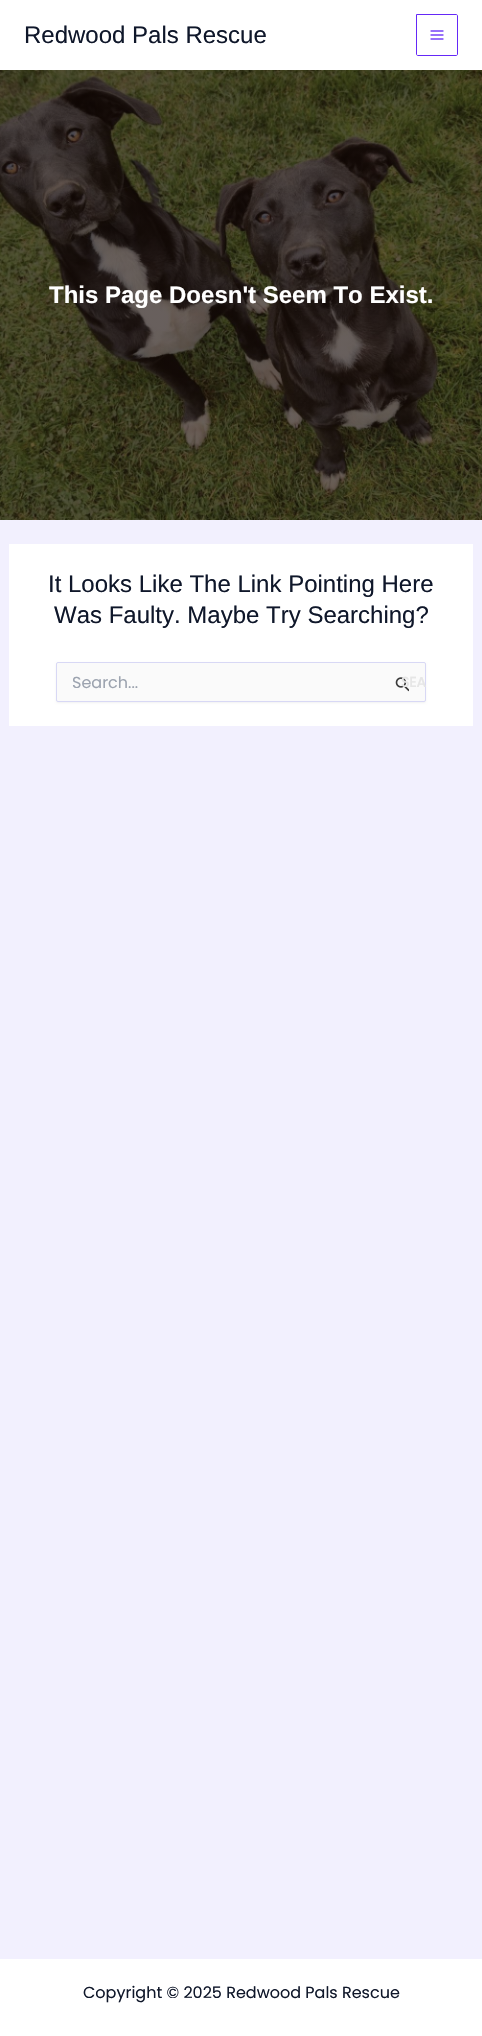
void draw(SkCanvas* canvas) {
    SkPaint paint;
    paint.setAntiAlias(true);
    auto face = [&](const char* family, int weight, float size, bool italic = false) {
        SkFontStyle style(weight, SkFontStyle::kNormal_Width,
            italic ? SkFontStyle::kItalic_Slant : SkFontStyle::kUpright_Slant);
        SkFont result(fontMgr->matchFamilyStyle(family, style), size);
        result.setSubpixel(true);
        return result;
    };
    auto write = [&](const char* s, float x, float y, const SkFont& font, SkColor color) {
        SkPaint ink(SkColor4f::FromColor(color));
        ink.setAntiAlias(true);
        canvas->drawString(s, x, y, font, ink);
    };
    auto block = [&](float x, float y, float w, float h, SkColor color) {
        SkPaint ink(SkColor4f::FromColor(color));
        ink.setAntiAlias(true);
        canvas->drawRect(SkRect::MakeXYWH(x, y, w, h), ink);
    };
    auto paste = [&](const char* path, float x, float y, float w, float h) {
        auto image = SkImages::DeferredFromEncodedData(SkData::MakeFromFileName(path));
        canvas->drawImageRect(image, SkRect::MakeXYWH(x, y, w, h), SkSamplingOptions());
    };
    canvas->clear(SkColorSetRGB(242, 240, 254));
    block(0, 0, 482, 70, SK_ColorWHITE);
    auto kFont1 = face("Liberation Sans", 400, 24);
    write("Redwood Pals Rescue", 24, 43, kFont1, SkColorSetRGB(15, 23, 42));
    paint.setStyle(SkPaint::kStroke_Style);
    paint.setStrokeWidth(1);
    paint.setColor(SkColorSetRGB(101, 40, 247));
    canvas->drawPath(SkPathBuilder().moveTo(416.5f, 14.5f).lineTo(456, 14.5f).cubicTo(457, 14.5f, 457.5f, 15, 457.5f, 16).lineTo(457.5f, 54).cubicTo(457.5f, 55, 457, 55.5f, 456, 55.5f).lineTo(418, 55.5f).cubicTo(417, 55.5f, 416.5f, 55, 416.5f, 54).close().detach(), paint);
    paste("pic1.png", 430, 30, 14, 10);
    paste("pic2.png", 0, 70, 482, 450);
    auto kFont2 = face("Liberation Sans", 700, 24);
    write("This Page Doesn't Seem To Exist.", 49, 303, kFont2, SK_ColorWHITE);
    block(9, 544, 464, 182, SK_ColorWHITE);
    write("It Looks Like The Link Pointing Here", 48, 592, kFont1, SkColorSetRGB(15, 23, 42));
    write("Was Faulty. Maybe Try Searching?", 54, 623, kFont1, SkColorSetRGB(15, 23, 42));
    paint.setStyle(SkPaint::kFill_Style);
    paint.setColor(SkColorSetARGB(13, 0, 0, 0));
    paint.setMaskFilter(SkMaskFilter::MakeBlur(kNormal_SkBlurStyle, 1));
    canvas->drawRoundRect(SkRect::MakeXYWH(56, 663, 370, 40), 2, 2, paint);
    paint.setMaskFilter(nullptr);
    paint.setColor(SkColorSetRGB(250, 250, 250));
    canvas->drawRoundRect(SkRect::MakeXYWH(56.5f, 662.5f, 369, 39), 1.5f, 1.5f, paint);
    paint.setStyle(SkPaint::kStroke_Style);
    paint.setColor(SkColorSetRGB(216, 216, 245));
    canvas->drawRoundRect(SkRect::MakeXYWH(56.5f, 662.5f, 369, 39), 1.5f, 1.5f, paint);
    auto kFont3 = face("Poppins", 400, 16);
    write("Search...", 72, 688, kFont3, SkColorSetRGB(156, 163, 175));
    paste("pic3.png", 395, 677, 14, 15);
    auto kFont4 = face("Poppins", 700, 14);
    write("SEA", 401, 687, kFont4, SkColorSetRGB(230, 230, 230));
    block(0, 1959, 482, 77, SK_ColorWHITE);
    write("Copyright © 2025 Redwood Pals Rescue", 83, 1998, kFont3, SkColorSetRGB(15, 23, 42));
}
